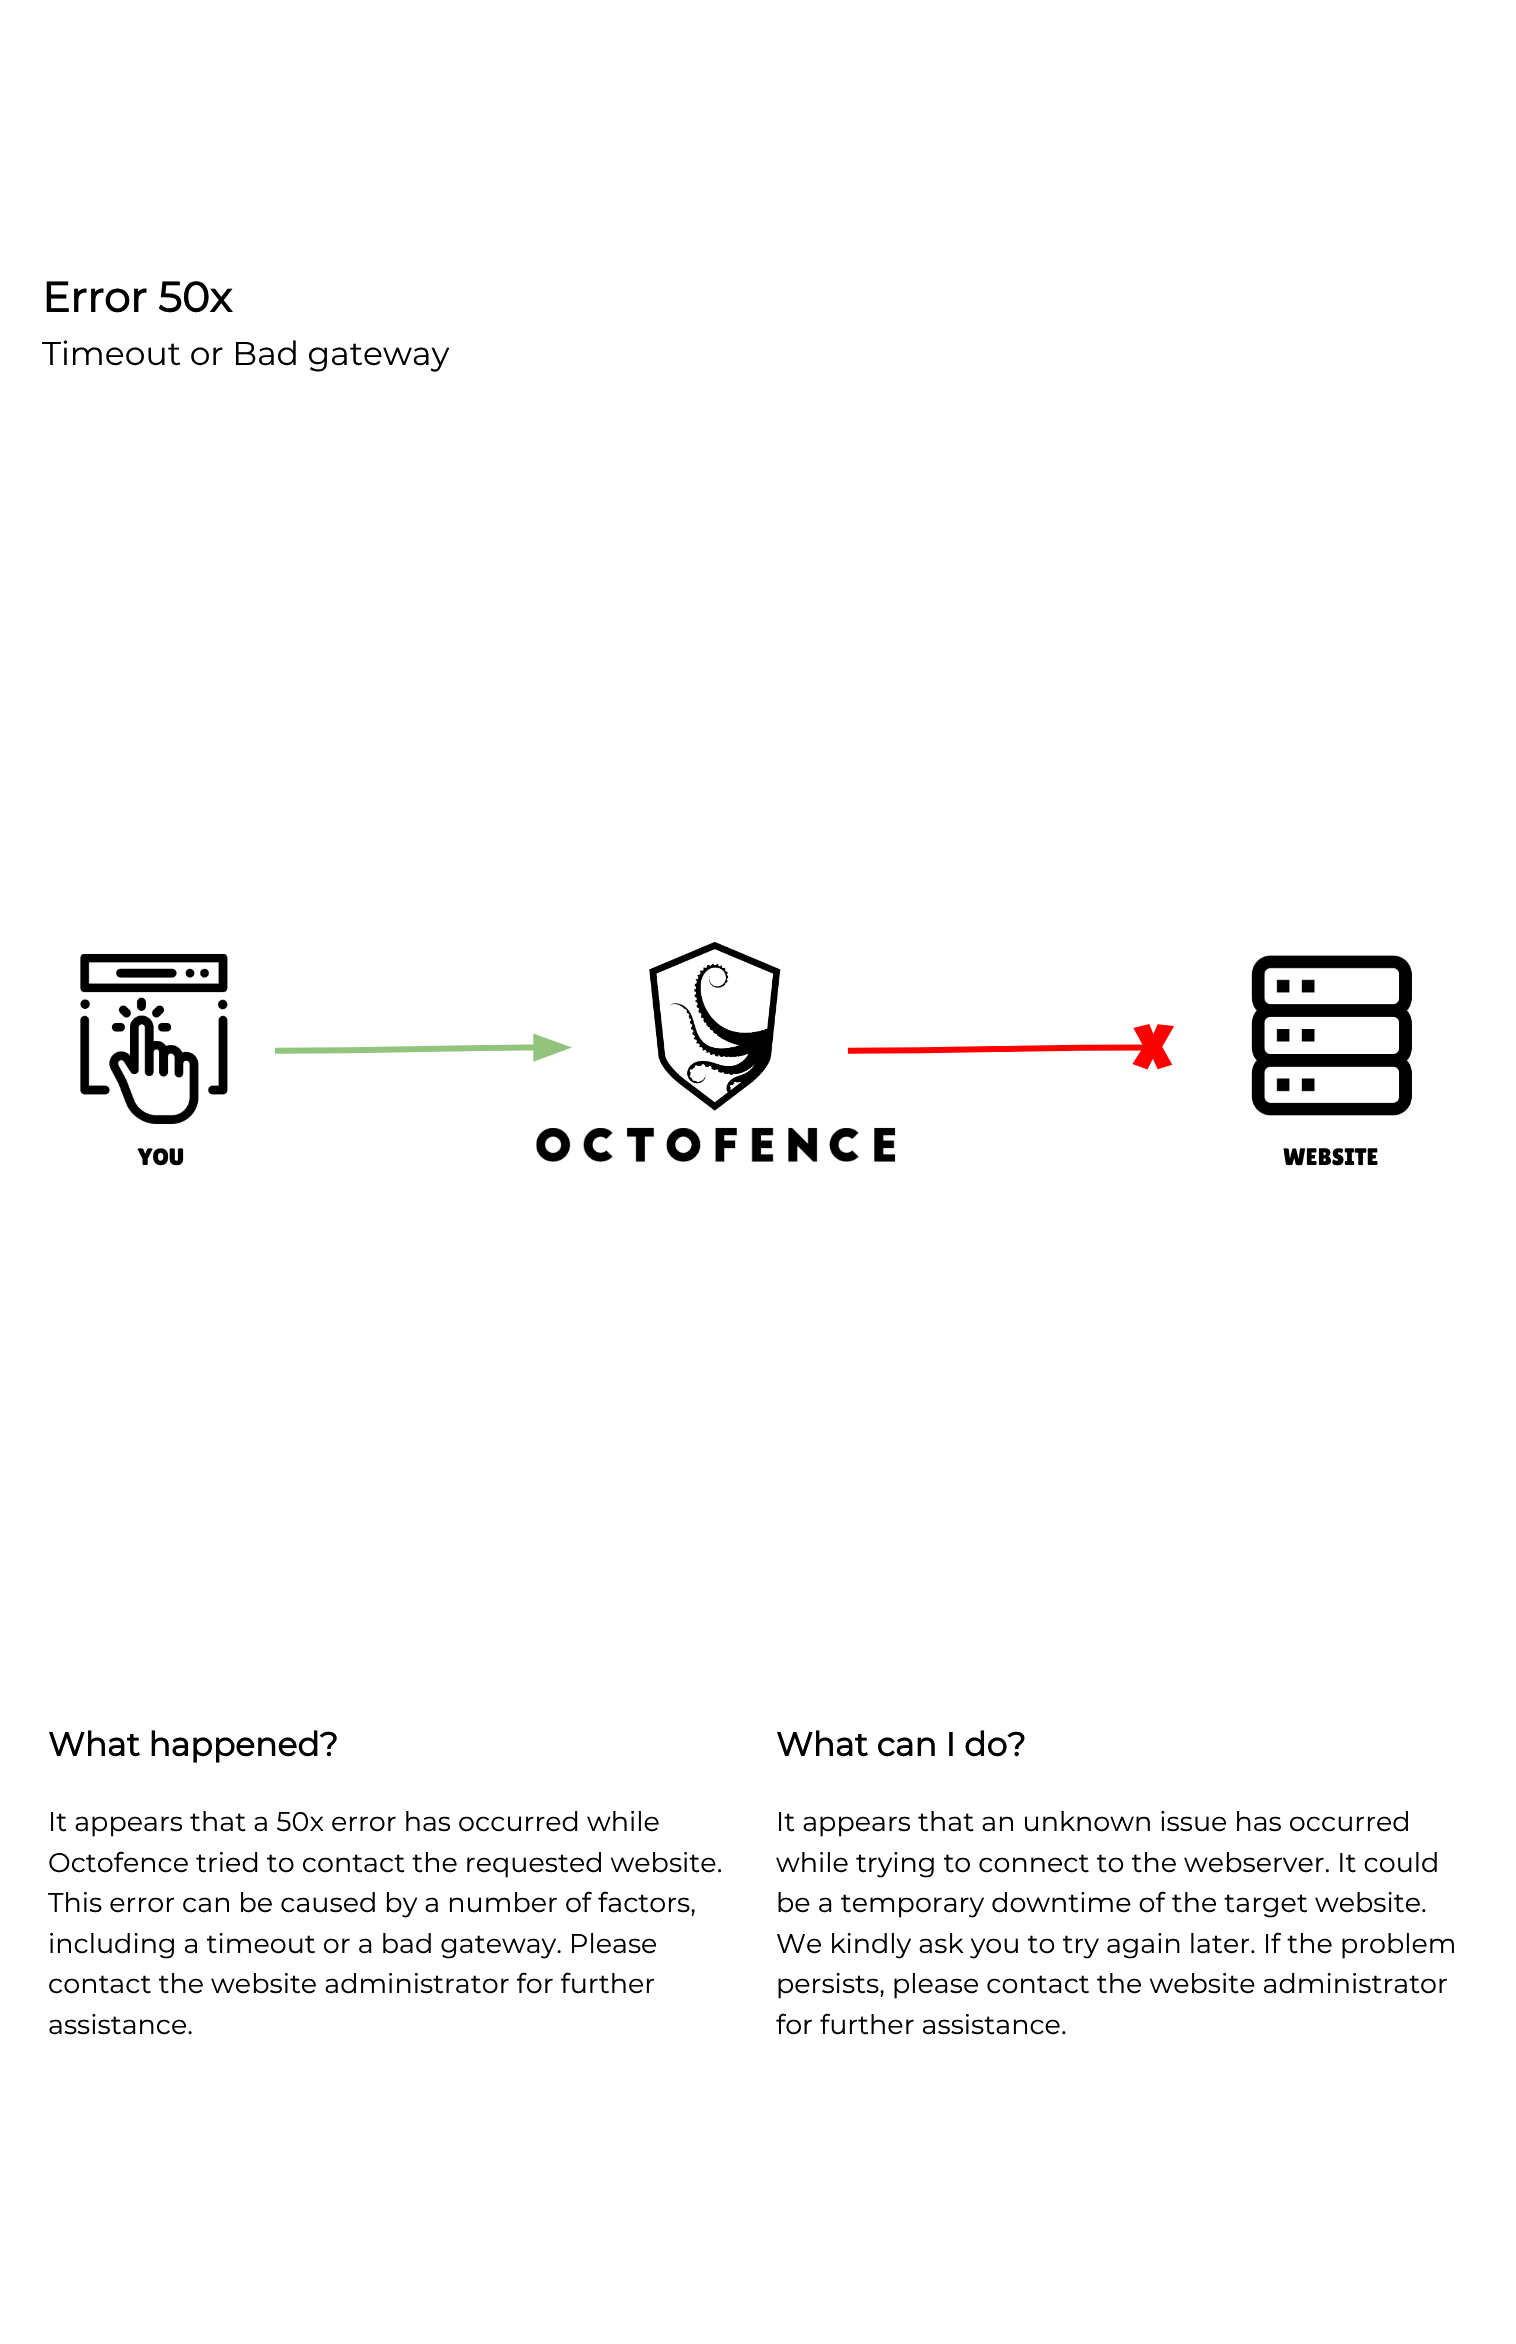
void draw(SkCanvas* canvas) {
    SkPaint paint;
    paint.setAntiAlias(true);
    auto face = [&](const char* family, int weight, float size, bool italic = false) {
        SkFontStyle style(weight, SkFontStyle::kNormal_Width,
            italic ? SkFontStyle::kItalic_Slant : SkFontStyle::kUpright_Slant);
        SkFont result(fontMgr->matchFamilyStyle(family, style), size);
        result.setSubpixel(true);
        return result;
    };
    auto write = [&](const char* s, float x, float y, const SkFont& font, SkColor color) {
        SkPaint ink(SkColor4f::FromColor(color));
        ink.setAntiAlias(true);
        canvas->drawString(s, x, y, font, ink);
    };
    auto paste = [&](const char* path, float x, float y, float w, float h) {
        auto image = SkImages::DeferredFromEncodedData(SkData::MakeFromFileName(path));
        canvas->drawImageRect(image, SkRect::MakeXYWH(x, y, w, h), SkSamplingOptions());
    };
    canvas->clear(SK_ColorWHITE);
    auto kFont1 = face("Montserrat", 700, 42);
    write("Error 50x", 42, 312, kFont1, SK_ColorBLACK);
    auto kFont2 = face("Montserrat", 100, 33);
    write("Timeout or Bad gateway", 42, 365, kFont2, SK_ColorBLACK);
    paste("pic1.png", 80, 942, 1332, 224);
    auto kFont3 = face("Montserrat", 700, 33);
    write("What happened?", 48, 1756, kFont3, SK_ColorBLACK);
    auto kFont4 = face("Montserrat", 100, 27);
    write("It appears that a 50x error has occurred while", 48, 1831, kFont4, SK_ColorBLACK);
    write("Octofence tried to contact the requested website.", 48, 1872, kFont4, SK_ColorBLACK);
    write("This error can be caused by a number of factors,", 48, 1912, kFont4, SK_ColorBLACK);
    write("including a timeout or a bad gateway. Please", 48, 1953, kFont4, SK_ColorBLACK);
    write("contact the website administrator for further", 48, 1993, kFont4, SK_ColorBLACK);
    write("assistance.", 48, 2034, kFont4, SK_ColorBLACK);
    write("What can I do?", 776, 1756, kFont3, SK_ColorBLACK);
    write("It appears that an unknown issue has occurred", 776, 1831, kFont4, SK_ColorBLACK);
    write("while trying to connect to the webserver. It could", 776, 1872, kFont4, SK_ColorBLACK);
    write("be a temporary downtime of the target website.", 776, 1912, kFont4, SK_ColorBLACK);
    write("We kindly ask you to try again later. If the problem", 776, 1953, kFont4, SK_ColorBLACK);
    write("persists, please contact the website administrator", 776, 1993, kFont4, SK_ColorBLACK);
    write("for further assistance.", 776, 2034, kFont4, SK_ColorBLACK);
}
